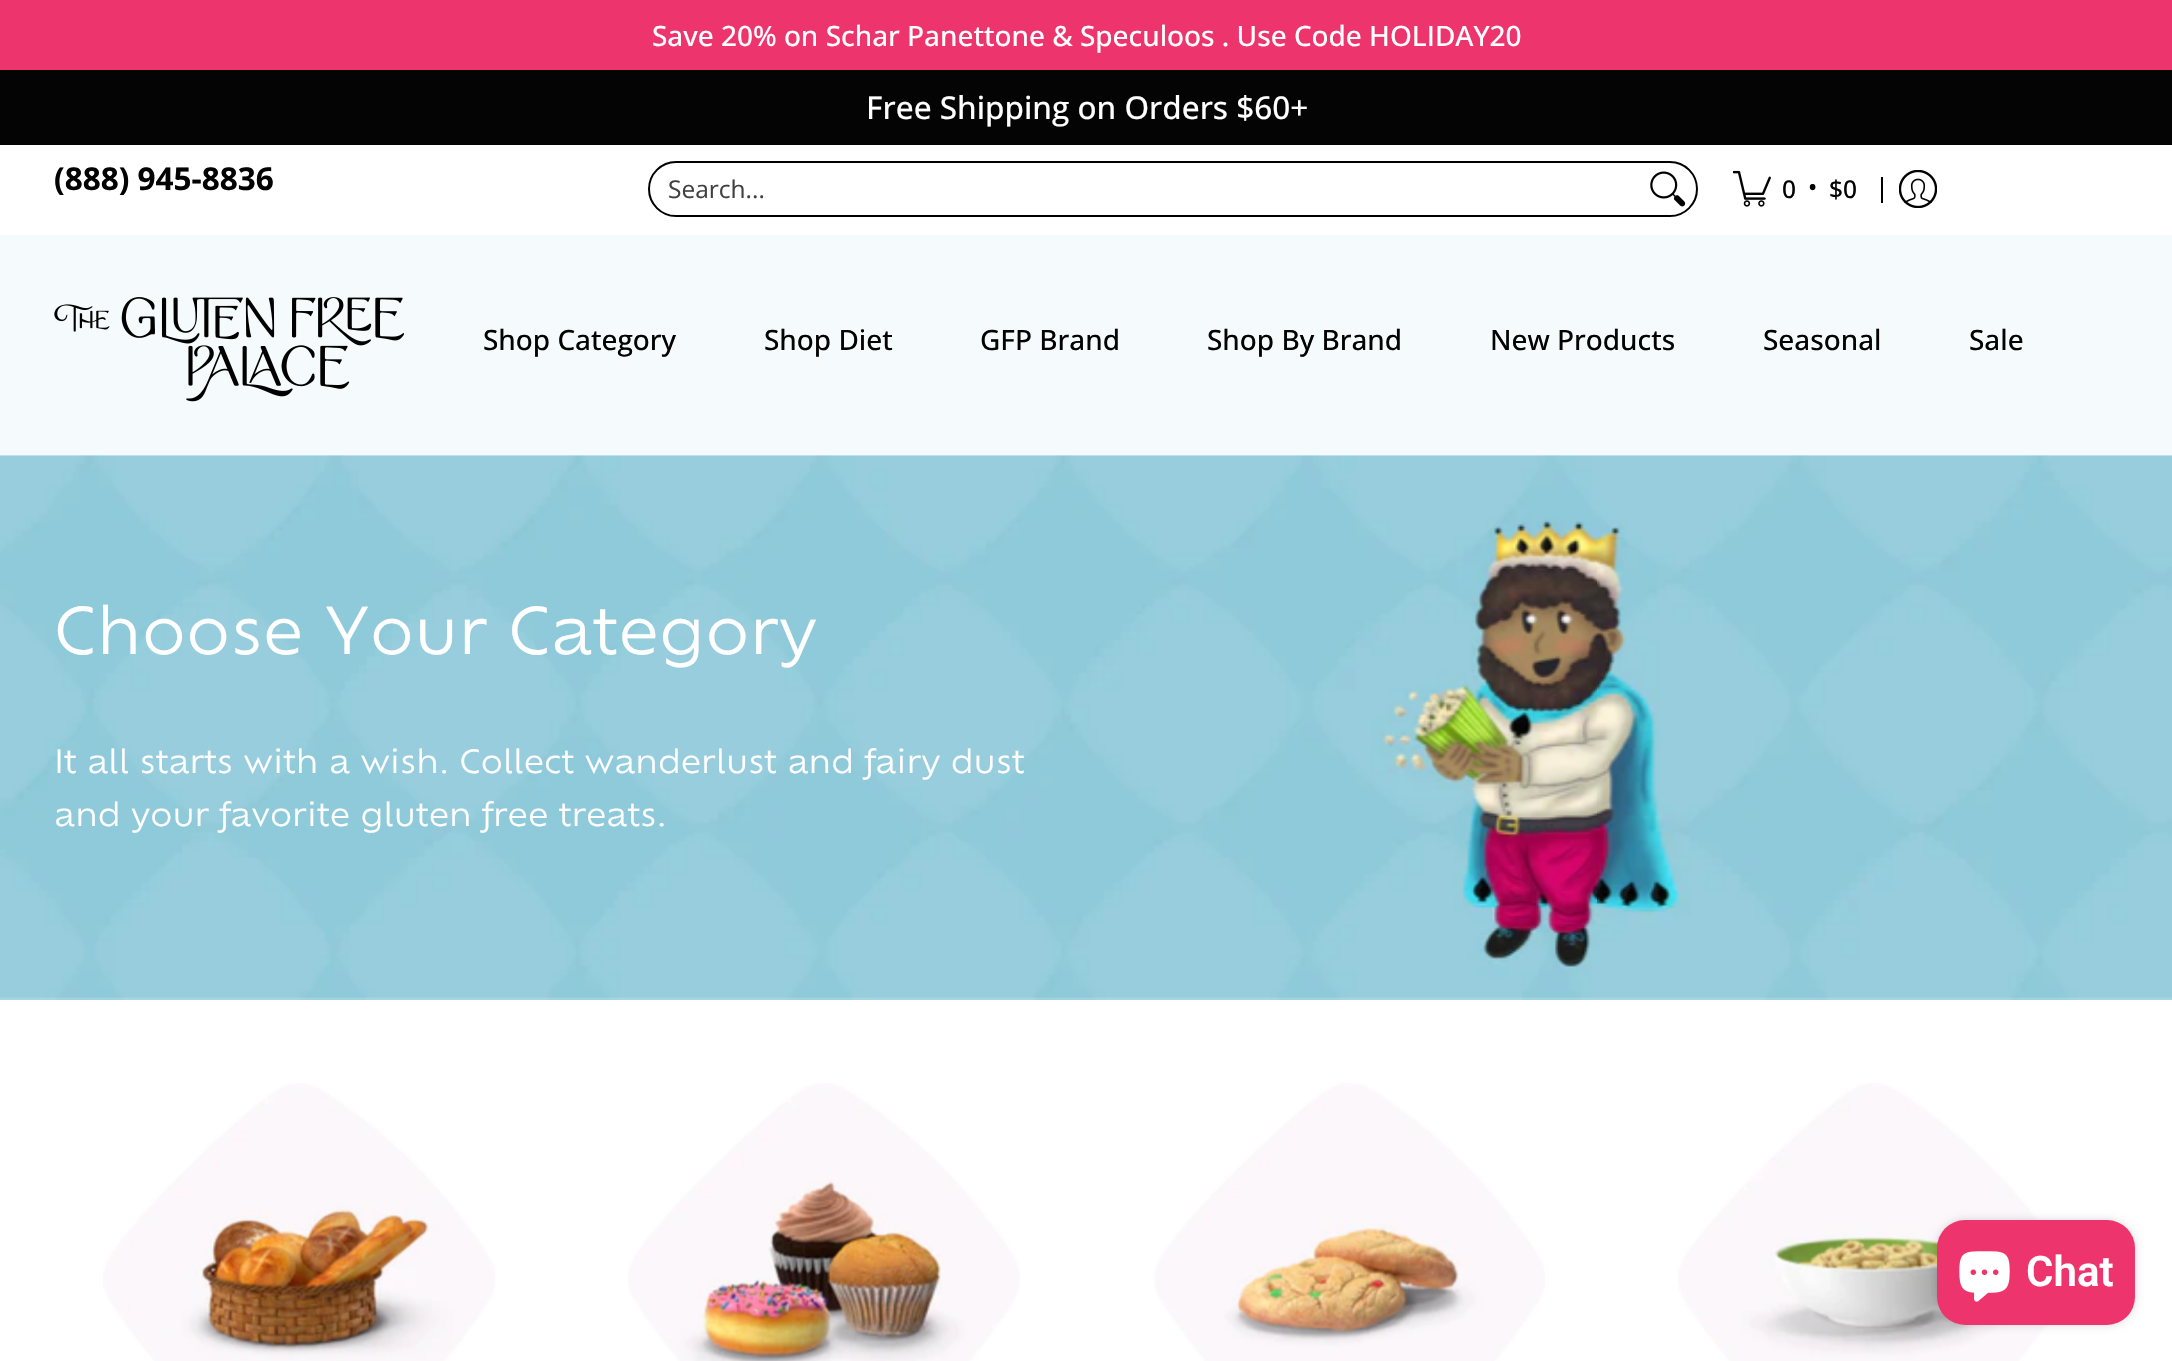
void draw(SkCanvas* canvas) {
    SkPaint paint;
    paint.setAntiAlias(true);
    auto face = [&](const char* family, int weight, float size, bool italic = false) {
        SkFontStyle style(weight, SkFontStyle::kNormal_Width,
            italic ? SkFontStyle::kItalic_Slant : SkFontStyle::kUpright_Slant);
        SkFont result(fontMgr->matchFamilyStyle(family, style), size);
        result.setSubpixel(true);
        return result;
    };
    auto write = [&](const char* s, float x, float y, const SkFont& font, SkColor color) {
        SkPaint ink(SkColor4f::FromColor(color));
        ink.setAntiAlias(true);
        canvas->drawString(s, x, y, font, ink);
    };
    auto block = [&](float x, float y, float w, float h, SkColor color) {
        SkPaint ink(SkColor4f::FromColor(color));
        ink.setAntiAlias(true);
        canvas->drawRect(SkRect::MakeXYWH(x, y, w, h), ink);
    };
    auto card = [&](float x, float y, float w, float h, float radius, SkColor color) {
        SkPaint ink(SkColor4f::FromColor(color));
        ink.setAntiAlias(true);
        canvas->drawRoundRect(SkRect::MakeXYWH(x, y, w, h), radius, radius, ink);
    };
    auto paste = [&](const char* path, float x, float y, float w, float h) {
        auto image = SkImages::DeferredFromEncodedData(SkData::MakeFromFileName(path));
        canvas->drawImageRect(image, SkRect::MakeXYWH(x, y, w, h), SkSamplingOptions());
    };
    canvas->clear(SK_ColorWHITE);
    block(0, 0, 2172, 70, SkColorSetRGB(238, 52, 109));
    auto kFont1 = face("Open Sans", 500, 28);
    write("Save 20% on Schar Panettone & Speculoos . Use Code HOLIDAY20", 652, 46, kFont1, SK_ColorWHITE);
    block(0, 70, 2172, 75, SkColorSetRGB(4, 4, 5));
    auto kFont2 = face("Open Sans", 500, 31.5f);
    write("Free Shipping on Orders $60+", 866, 119, kFont2, SK_ColorWHITE);
    auto kFont3 = face("Open Sans", 700, 31.5f);
    write("(888) 945-8836", 54, 190, kFont3, SkColorSetRGB(2, 3, 2));
    paint.setStyle(SkPaint::kStroke_Style);
    paint.setStrokeWidth(2);
    paint.setColor(SK_ColorBLACK);
    canvas->drawRoundRect(SkRect::MakeXYWH(649, 162, 1048, 54), 27, 27, paint);
    auto kFont4 = face("Open Sans", 400, 24.5f);
    write("Search...", 668, 198, kFont4, SkColorSetRGB(64, 64, 64));
    paste("pic1.png", 1650, 171, 36, 36);
    paste("pic2.png", 1733, 170, 38, 37);
    auto kFont5 = face("Open Sans", 500, 24.5f);
    write("0", 1782, 198, kFont5, SkColorSetRGB(2, 3, 2));
    write("•", 1808, 196, kFont5, SkColorSetRGB(2, 3, 2));
    write("$0", 1829, 198, kFont5, SkColorSetRGB(2, 3, 2));
    block(1881, 177, 2, 26, SK_ColorBLACK);
    paste("pic3.png", 1899, 170, 38, 38);
    block(0, 235, 2172, 220, SkColorSetRGB(245, 250, 252));
    paste("pic4.png", 54, 297, 350, 105);
    write("Shop Category", 483, 350, kFont1, SkColorSetRGB(2, 3, 2));
    write("Shop Diet", 764, 350, kFont1, SkColorSetRGB(2, 3, 2));
    write("GFP Brand", 980, 350, kFont1, SkColorSetRGB(2, 3, 2));
    write("Shop By Brand", 1207, 350, kFont1, SkColorSetRGB(2, 3, 2));
    write("New Products", 1490, 350, kFont1, SkColorSetRGB(2, 3, 2));
    write("Seasonal", 1763, 350, kFont1, SkColorSetRGB(2, 3, 2));
    write("Sale", 1969, 350, kFont1, SkColorSetRGB(2, 3, 2));
    paste("pic5.png", 0, 455, 2172, 545);
    auto kFont6 = face("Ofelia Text", 400, 63);
    write("Choose Your Category", 54, 654, kFont6, SK_ColorWHITE);
    auto kFont7 = face("Ofelia Text", 400, 31.5f);
    write("It all starts with a wish. Collect wanderlust and fairy dust", 54, 773, kFont7, SK_ColorWHITE);
    write("and your favorite gluten free treats.", 54, 826, kFont7, SK_ColorWHITE);
    paste("pic6.png", 103, 1083, 392, 278);
    paste("pic7.png", 628, 1083, 392, 278);
    paste("pic8.png", 1154, 1083, 391, 278);
    paste("pic9.png", 1678, 1083, 371, 278);
    paint.setStyle(SkPaint::kFill_Style);
    paint.setColor(SkColorSetARGB(38, 0, 0, 0));
    paint.setMaskFilter(SkMaskFilter::MakeBlur(kNormal_SkBlurStyle, 4.5f));
    canvas->drawRoundRect(SkRect::MakeXYWH(1937, 1220, 198, 105), 28, 28, paint);
    paint.setMaskFilter(nullptr);
    card(1937, 1220, 198, 105, 28, SkColorSetRGB(238, 52, 109));
    paste("pic10.png", 1959, 1251, 51, 51);
    auto kFont8 = face("Roboto", 600, 42);
    write("Chat", 2026, 1286, kFont8, SK_ColorWHITE);
}
